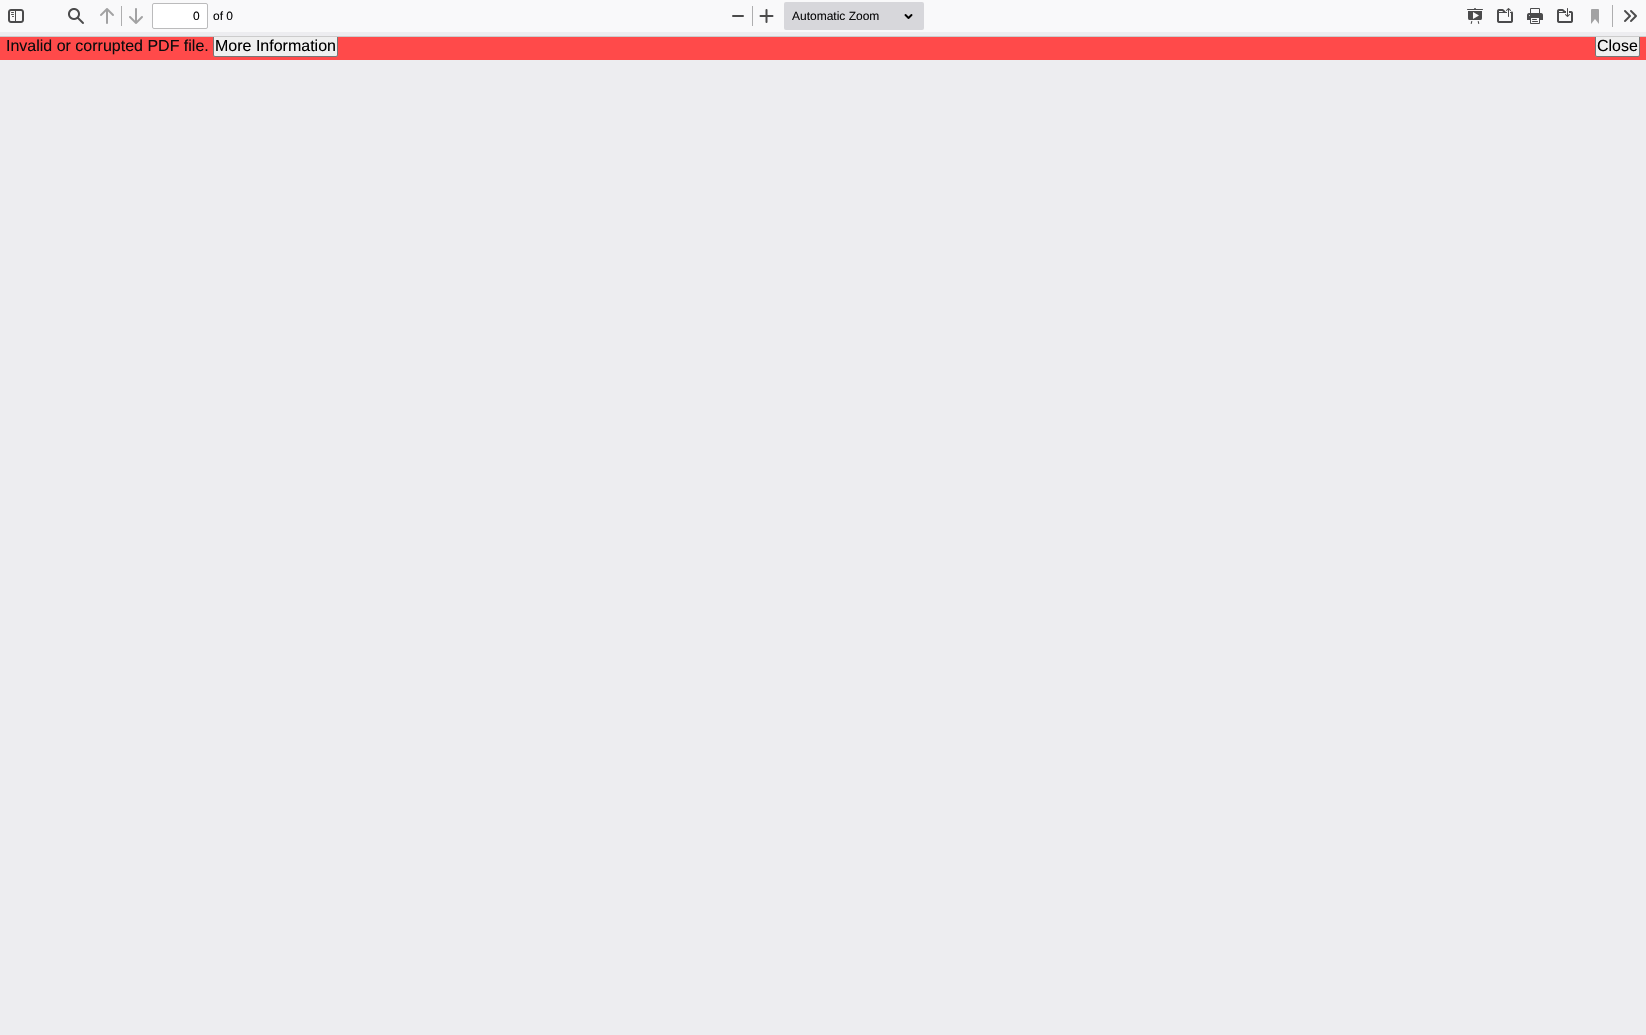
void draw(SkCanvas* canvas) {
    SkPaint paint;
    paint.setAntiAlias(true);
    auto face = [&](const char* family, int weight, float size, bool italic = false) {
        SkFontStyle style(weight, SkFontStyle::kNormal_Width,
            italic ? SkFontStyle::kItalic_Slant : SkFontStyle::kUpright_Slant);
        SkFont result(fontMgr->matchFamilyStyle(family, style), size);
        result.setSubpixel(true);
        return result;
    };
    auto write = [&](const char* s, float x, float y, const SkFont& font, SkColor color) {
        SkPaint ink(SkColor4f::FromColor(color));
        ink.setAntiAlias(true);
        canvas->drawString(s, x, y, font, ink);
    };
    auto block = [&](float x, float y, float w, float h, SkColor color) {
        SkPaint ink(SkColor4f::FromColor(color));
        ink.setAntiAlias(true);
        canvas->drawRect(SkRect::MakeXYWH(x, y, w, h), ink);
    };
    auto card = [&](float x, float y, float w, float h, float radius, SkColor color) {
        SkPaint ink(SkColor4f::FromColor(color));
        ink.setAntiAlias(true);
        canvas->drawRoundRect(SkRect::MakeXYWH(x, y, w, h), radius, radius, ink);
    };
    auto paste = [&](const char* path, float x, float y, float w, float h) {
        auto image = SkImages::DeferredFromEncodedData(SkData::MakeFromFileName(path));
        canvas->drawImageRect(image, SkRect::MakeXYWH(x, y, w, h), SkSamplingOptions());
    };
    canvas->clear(SkColorSetRGB(237, 237, 240));
    block(0, 0, 1646, 32, SkColorSetRGB(249, 249, 250));
    paste("pic1.png", 8, 9, 16, 14);
    paste("pic2.png", 68, 8, 16, 16);
    paste("pic3.png", 100, 8, 14, 16);
    block(121, 6, 1, 20, SkColorSetRGB(174, 174, 175));
    paste("pic4.png", 129, 8, 14, 16);
    paint.setColor(SK_ColorWHITE);
    canvas->drawRoundRect(SkRect::MakeXYWH(152.5f, 3.5f, 55, 25), 1.5f, 1.5f, paint);
    paint.setStyle(SkPaint::kStroke_Style);
    paint.setStrokeWidth(1);
    paint.setColor(SkColorSetRGB(187, 187, 188));
    canvas->drawRoundRect(SkRect::MakeXYWH(152.5f, 3.5f, 55, 25), 1.5f, 1.5f, paint);
    auto kFont1 = face("Liberation Sans", 400, 12);
    write("0", 193, 20, kFont1, SkColorSetRGB(6, 6, 6));
    write("of 0", 213, 20, kFont1, SkColorSetRGB(12, 12, 13));
    card(732, 15, 12, 2, 1, SkColorSetRGB(75, 75, 75));
    block(752, 6, 1, 20, SkColorSetRGB(174, 174, 175));
    paste("pic5.png", 759, 9, 15, 14);
    card(784, 2, 140, 28, 2, SkColorSetRGB(215, 215, 219));
    write("Automatic Zoom", 792, 20, kFont1, SkColorSetRGB(12, 12, 13));
    paste("pic6.png", 904, 14, 9, 5);
    paste("pic7.png", 1467, 8, 16, 16);
    paste("pic8.png", 1497, 8, 16, 15);
    paste("pic9.png", 1527, 8, 16, 16);
    paste("pic10.png", 1557, 8, 16, 15);
    paste("pic11.png", 1591, 9, 8, 15);
    block(1612, 5, 1, 22, SkColorSetRGB(174, 174, 175));
    paste("pic12.png", 1624, 10, 13, 12);
    block(0, 37, 1646, 23, SkColorSetRGB(255, 74, 74));
    paint.setStyle(SkPaint::kFill_Style);
    paint.setColor(SkColorSetRGB(239, 239, 239));
    canvas->drawRoundRect(SkRect::MakeXYWH(213.5f, 35.5f, 124, 21), 1.5f, 1.5f, paint);
    paint.setStyle(SkPaint::kStroke_Style);
    paint.setColor(SkColorSetRGB(118, 118, 118));
    canvas->drawRoundRect(SkRect::MakeXYWH(213.5f, 35.5f, 124, 21), 1.5f, 1.5f, paint);
    paint.setStyle(SkPaint::kFill_Style);
    paint.setColor(SkColorSetRGB(239, 239, 239));
    canvas->drawRoundRect(SkRect::MakeXYWH(1595.5f, 35.5f, 44, 21), 1.5f, 1.5f, paint);
    paint.setStyle(SkPaint::kStroke_Style);
    paint.setColor(SkColorSetRGB(118, 118, 118));
    canvas->drawRoundRect(SkRect::MakeXYWH(1595.5f, 35.5f, 44, 21), 1.5f, 1.5f, paint);
    block(213, 35, 1433, 1, SkColorSetRGB(237, 237, 240));
    block(0, 36, 1646, 1, SkColorSetRGB(204, 204, 204));
    auto kFont2 = face("Liberation Sans", 400, 16);
    write("Invalid or corrupted PDF file.", 6, 51, kFont2, SkColorSetRGB(12, 12, 13));
    write("More Information", 215, 51, kFont2, SK_ColorBLACK);
    write("Close", 1597, 51, kFont2, SK_ColorBLACK);
}
